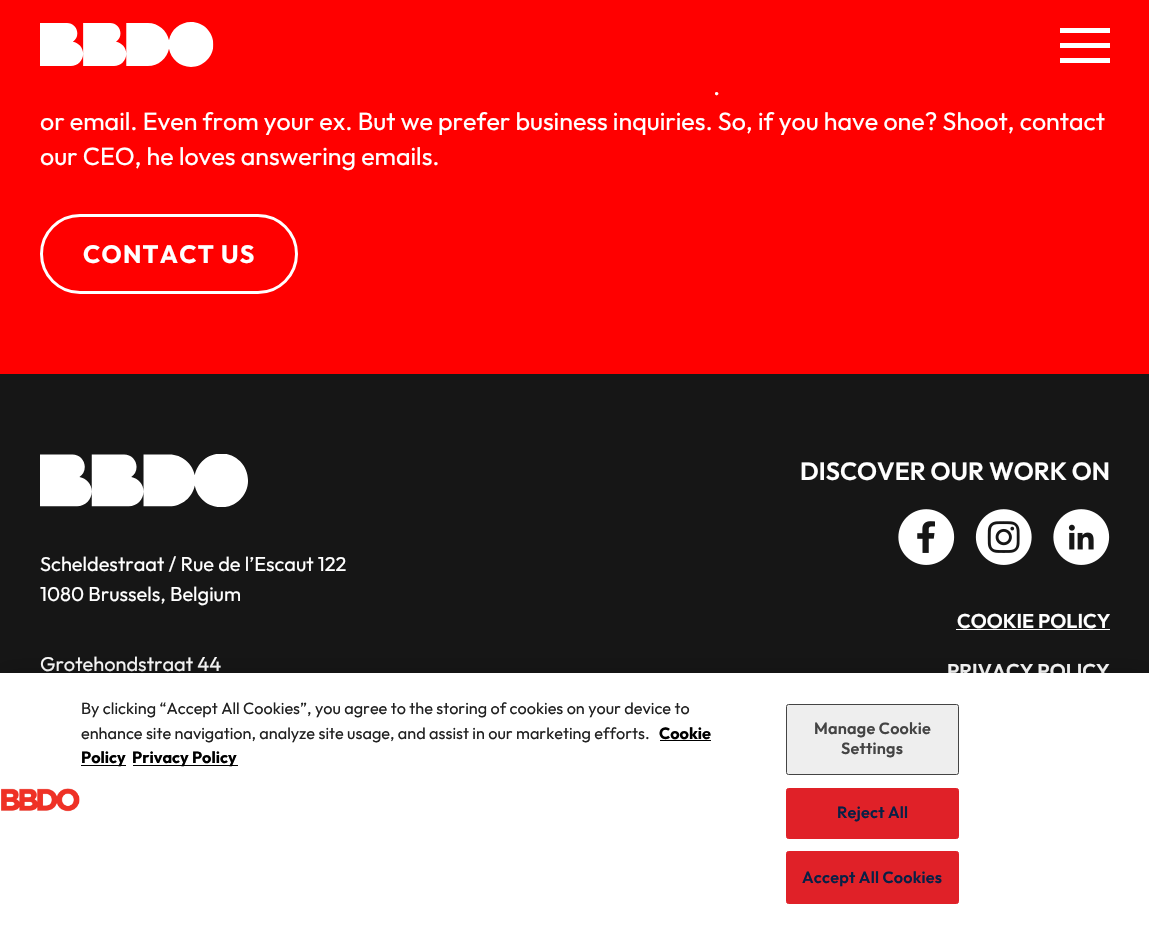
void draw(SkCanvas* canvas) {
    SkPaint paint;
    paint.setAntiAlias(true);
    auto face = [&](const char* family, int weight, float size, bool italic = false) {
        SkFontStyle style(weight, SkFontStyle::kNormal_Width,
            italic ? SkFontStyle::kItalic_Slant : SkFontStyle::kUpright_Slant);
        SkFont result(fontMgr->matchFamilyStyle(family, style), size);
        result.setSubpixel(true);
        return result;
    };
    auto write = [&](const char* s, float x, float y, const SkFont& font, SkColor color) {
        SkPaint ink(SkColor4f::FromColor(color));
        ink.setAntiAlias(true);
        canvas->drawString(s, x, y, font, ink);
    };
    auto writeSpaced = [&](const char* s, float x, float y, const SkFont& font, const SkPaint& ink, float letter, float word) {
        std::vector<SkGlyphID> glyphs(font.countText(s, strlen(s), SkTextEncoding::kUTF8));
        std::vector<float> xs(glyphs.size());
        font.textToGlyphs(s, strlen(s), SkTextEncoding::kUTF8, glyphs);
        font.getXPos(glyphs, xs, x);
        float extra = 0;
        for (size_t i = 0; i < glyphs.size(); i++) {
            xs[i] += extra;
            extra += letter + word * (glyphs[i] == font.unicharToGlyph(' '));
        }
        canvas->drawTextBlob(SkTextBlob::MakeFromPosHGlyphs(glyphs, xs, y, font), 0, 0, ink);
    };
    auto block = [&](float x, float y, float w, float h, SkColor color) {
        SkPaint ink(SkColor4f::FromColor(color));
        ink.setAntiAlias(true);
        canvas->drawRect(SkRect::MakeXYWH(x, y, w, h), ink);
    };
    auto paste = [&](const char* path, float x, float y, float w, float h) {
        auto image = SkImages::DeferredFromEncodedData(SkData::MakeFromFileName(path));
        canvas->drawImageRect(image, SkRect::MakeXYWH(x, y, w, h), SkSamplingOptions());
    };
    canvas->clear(SkColorSetRGB(22, 22, 22));
    block(0, 0, 1149, 374, SkColorSetRGB(255, 0, 0));
    paste("pic1.png", 40, 22, 174, 45);
    block(1060, 28, 50, 5, SK_ColorWHITE);
    block(1060, 43, 50, 5, SK_ColorWHITE);
    block(1060, 58, 50, 5, SK_ColorWHITE);
    auto kFont1 = face("Outfit", 400, 25);
    write(".", 713, 95, kFont1, SK_ColorWHITE);
    write("or email. Even from your ex. But we prefer business inquiries. So, if you have one? Shoot, contact", 40, 130, kFont1, SK_ColorWHITE);
    write("our CEO, he loves answering emails.", 40, 165, kFont1, SK_ColorWHITE);
    paint.setStyle(SkPaint::kStroke_Style);
    paint.setStrokeWidth(3);
    paint.setColor(SK_ColorWHITE);
    canvas->drawRoundRect(SkRect::MakeXYWH(41.5f, 215.5f, 255, 77), 38.5f, 38.5f, paint);
    auto kFont2 = face("Outfit", 700, 25);
    paint.setStyle(SkPaint::kFill_Style);
    writeSpaced("CONTACT US", 83, 263, kFont2, paint, 1.25f, 0);
    paste("pic2.png", 40, 454, 208, 53);
    auto kFont3 = face("Outfit", 400, 20);
    write("Scheldestraat / Rue de l’Escaut 122", 40, 571, kFont3, SK_ColorWHITE);
    write("1080 Brussels, Belgium", 40, 601, kFont3, SK_ColorWHITE);
    write("Grotehondstraat 44", 40, 671, kFont3, SK_ColorWHITE);
    auto kFont4 = face("Outfit", 600, 25);
    write("DISCOVER OUR WORK ON", 800, 480, kFont4, SK_ColorWHITE);
    paste("pic3.png", 898, 509, 57, 56);
    paste("pic4.png", 975, 509, 57, 56);
    paste("pic5.png", 1053, 509, 57, 56);
    auto kFont5 = face("Outfit", 600, 20);
    write("COOKIE POLICY", 957, 628, kFont5, SK_ColorWHITE);
    block(956, 629, 154, 1, SK_ColorWHITE);
    write("PRIVACY POLICY", 947, 678, kFont5, SK_ColorWHITE);
    paint.setColor(SkColorSetARGB(51, 0, 0, 0));
    paint.setMaskFilter(SkMaskFilter::MakeBlur(kNormal_SkBlurStyle, 11));
    canvas->drawRect(SkRect::MakeXYWH(0, 673, 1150, 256), paint);
    paint.setMaskFilter(nullptr);
    block(0, 673, 1149, 255, SK_ColorWHITE);
    auto kFont6 = face("Outfit", 400, 16.25f);
    write("By clicking “Accept All Cookies”, you agree to the storing of cookies on your device to", 81, 714, kFont6, SkColorSetRGB(33, 33, 33));
    write("enhance site navigation, analyze site usage, and assist in our marketing efforts.", 81, 739, kFont6, SkColorSetRGB(33, 33, 33));
    auto kFont7 = face("Outfit", 700, 16.25f);
    write("Cookie", 659, 739, kFont7, SK_ColorBLACK);
    block(660, 740, 51, 1, SK_ColorBLACK);
    block(81, 765, 45, 1, SK_ColorBLACK);
    write("Policy", 81, 763, kFont7, SK_ColorBLACK);
    block(133, 765, 105, 1, SK_ColorBLACK);
    write("Privacy Policy", 132, 763, kFont7, SK_ColorBLACK);
    paste("pic6.png", 1, 788, 79, 24);
    paint.setColor(SkColorSetRGB(238, 238, 238));
    canvas->drawRoundRect(SkRect::MakeXYWH(786.5f, 704.5f, 172, 70), 2, 2, paint);
    paint.setStyle(SkPaint::kStroke_Style);
    paint.setStrokeWidth(1);
    paint.setColor(SkColorSetRGB(68, 68, 68));
    canvas->drawRoundRect(SkRect::MakeXYWH(786.5f, 704.5f, 172, 70), 2, 2, paint);
    auto kFont8 = face("Outfit", 600, 16.25f);
    paint.setStyle(SkPaint::kFill_Style);
    writeSpaced("Manage Cookie", 814, 734, kFont8, paint, 0.2f, 0);
    writeSpaced("Settings", 841, 754, kFont8, paint, 0.2f, 0);
    paint.setColor(SkColorSetRGB(224, 33, 40));
    canvas->drawRoundRect(SkRect::MakeXYWH(786.5f, 788.5f, 172, 50), 2, 2, paint);
    paint.setStyle(SkPaint::kStroke_Style);
    canvas->drawRoundRect(SkRect::MakeXYWH(786.5f, 788.5f, 172, 50), 2, 2, paint);
    paint.setStyle(SkPaint::kFill_Style);
    paint.setColor(SkColorSetRGB(9, 32, 69));
    writeSpaced("Reject All", 837, 818, kFont8, paint, 0.2f, 0);
    paint.setColor(SkColorSetRGB(224, 33, 40));
    canvas->drawRoundRect(SkRect::MakeXYWH(786.5f, 851.5f, 172, 52), 2, 2, paint);
    paint.setStyle(SkPaint::kStroke_Style);
    canvas->drawRoundRect(SkRect::MakeXYWH(786.5f, 851.5f, 172, 52), 2, 2, paint);
    paint.setStyle(SkPaint::kFill_Style);
    paint.setColor(SkColorSetRGB(9, 32, 69));
    writeSpaced("Accept All Cookies", 802, 883, kFont8, paint, 0.2f, 0);
}
